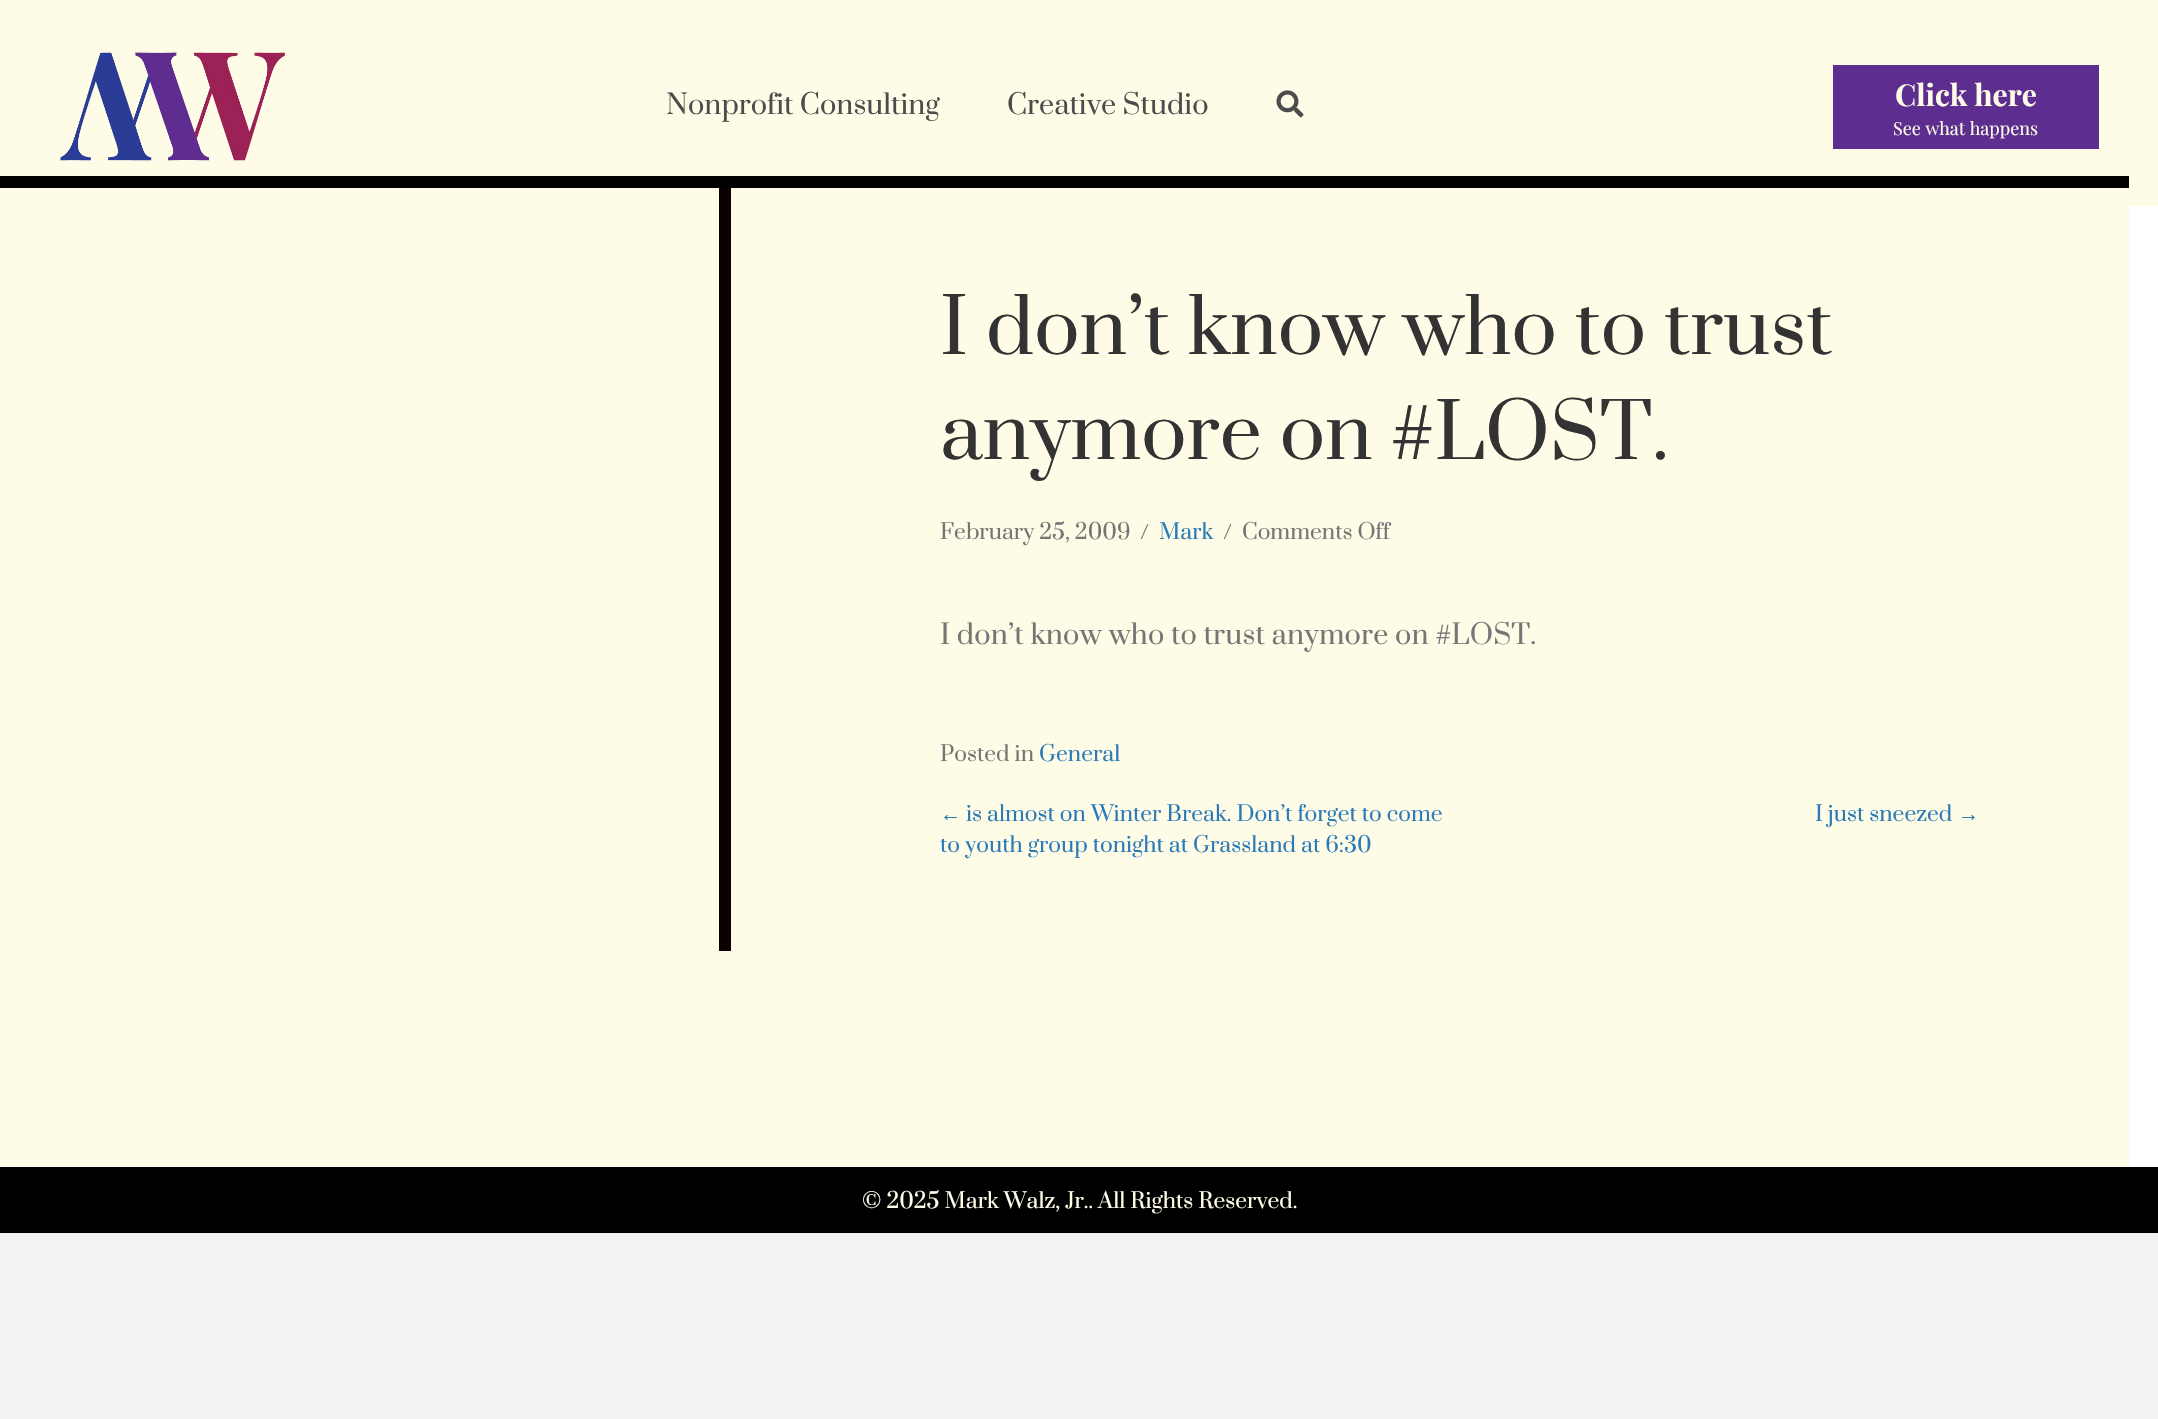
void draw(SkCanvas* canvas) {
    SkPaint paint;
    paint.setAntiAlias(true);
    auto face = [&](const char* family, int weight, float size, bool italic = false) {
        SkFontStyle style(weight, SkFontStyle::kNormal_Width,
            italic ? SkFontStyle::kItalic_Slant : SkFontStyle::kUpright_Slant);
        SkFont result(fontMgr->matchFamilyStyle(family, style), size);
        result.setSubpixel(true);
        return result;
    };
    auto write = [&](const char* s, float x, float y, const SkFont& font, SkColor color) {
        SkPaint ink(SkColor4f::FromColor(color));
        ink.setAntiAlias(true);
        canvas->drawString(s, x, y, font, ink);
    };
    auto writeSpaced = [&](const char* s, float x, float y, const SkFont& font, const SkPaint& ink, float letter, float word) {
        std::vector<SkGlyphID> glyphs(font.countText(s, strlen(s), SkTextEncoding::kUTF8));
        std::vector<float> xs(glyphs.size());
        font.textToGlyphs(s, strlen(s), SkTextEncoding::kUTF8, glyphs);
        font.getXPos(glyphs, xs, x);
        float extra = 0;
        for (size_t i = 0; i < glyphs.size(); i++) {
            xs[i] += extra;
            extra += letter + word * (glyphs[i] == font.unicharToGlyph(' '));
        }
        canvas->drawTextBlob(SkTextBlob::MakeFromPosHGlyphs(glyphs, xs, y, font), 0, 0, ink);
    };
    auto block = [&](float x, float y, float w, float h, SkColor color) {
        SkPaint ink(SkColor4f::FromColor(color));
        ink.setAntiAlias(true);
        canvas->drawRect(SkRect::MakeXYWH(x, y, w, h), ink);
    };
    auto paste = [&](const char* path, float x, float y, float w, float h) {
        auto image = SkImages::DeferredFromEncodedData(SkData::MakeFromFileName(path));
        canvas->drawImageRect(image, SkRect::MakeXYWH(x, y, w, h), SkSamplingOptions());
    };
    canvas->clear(SkColorSetRGB(242, 242, 242));
    block(0, 0, 2158, 206, SkColorSetRGB(254, 252, 231));
    paste("pic1.png", 60, 52, 225, 109);
    auto kFont1 = face("Prata", 400, 27);
    write("Nonprofit Consulting", 666, 114, kFont1, SkColorSetRGB(76, 76, 76));
    write("Creative Studio", 1007, 114, kFont1, SkColorSetRGB(76, 76, 76));
    paste("pic2.png", 1276, 90, 28, 28);
    block(1833, 65, 266, 84, SkColorSetRGB(94, 45, 144));
    auto kFont2 = face("Playfair Display", 700, 30);
    write("Click here", 1895, 106, kFont2, SkColorSetRGB(254, 252, 231));
    auto kFont3 = face("Playfair Display", 400, 18);
    write("See what happens", 1893, 135, kFont3, SkColorSetRGB(254, 252, 231));
    block(2129, 206, 29, 961, SK_ColorWHITE);
    block(0, 206, 2129, 961, SkColorSetRGB(254, 252, 231));
    block(0, 176, 2129, 12, SK_ColorBLACK);
    block(719, 188, 12, 763, SkColorSetRGB(10, 0, 0));
    auto kFont4 = face("Prata", 400, 75);
    write("I don’t know who to trust", 940, 354, kFont4, SkColorSetRGB(51, 51, 51));
    write("anymore on #LOST.", 940, 459, kFont4, SkColorSetRGB(51, 51, 51));
    auto kFont5 = face("Prata", 400, 21);
    write("February 25, 2009", 940, 539, kFont5, SkColorSetRGB(117, 117, 117));
    write("/", 1140, 539, kFont5, SkColorSetRGB(117, 117, 117));
    write("Mark", 1159, 539, kFont5, SkColorSetRGB(43, 123, 185));
    write("/", 1223, 539, kFont5, SkColorSetRGB(117, 117, 117));
    write("Comments Off", 1242, 539, kFont5, SkColorSetRGB(117, 117, 117));
    paint.setColor(SkColorSetRGB(117, 117, 117));
    writeSpaced("I don’t know who to trust anymore on #LOST.", 940, 644, kFont1, paint, 0.15f, 0);
    write("Posted in", 940, 761, kFont5, SkColorSetRGB(117, 117, 117));
    write("General", 1039, 761, kFont5, SkColorSetRGB(43, 123, 185));
    auto kFont6 = face("Liberation Serif", 400, 21);
    write("←", 940, 821, kFont6, SkColorSetRGB(43, 123, 185));
    write("is almost on Winter Break. Don’t forget to come", 966, 821, kFont5, SkColorSetRGB(43, 123, 185));
    write("to youth group tonight at Grassland at 6:30", 940, 852, kFont5, SkColorSetRGB(43, 123, 185));
    write("I just sneezed", 1815, 821, kFont5, SkColorSetRGB(43, 123, 185));
    write("→", 1958, 821, kFont6, SkColorSetRGB(43, 123, 185));
    block(0, 1167, 2158, 66, SK_ColorBLACK);
    write("© 2025 Mark Walz, Jr.. All Rights Reserved.", 862, 1208, kFont5, SkColorSetRGB(254, 252, 231));
}
